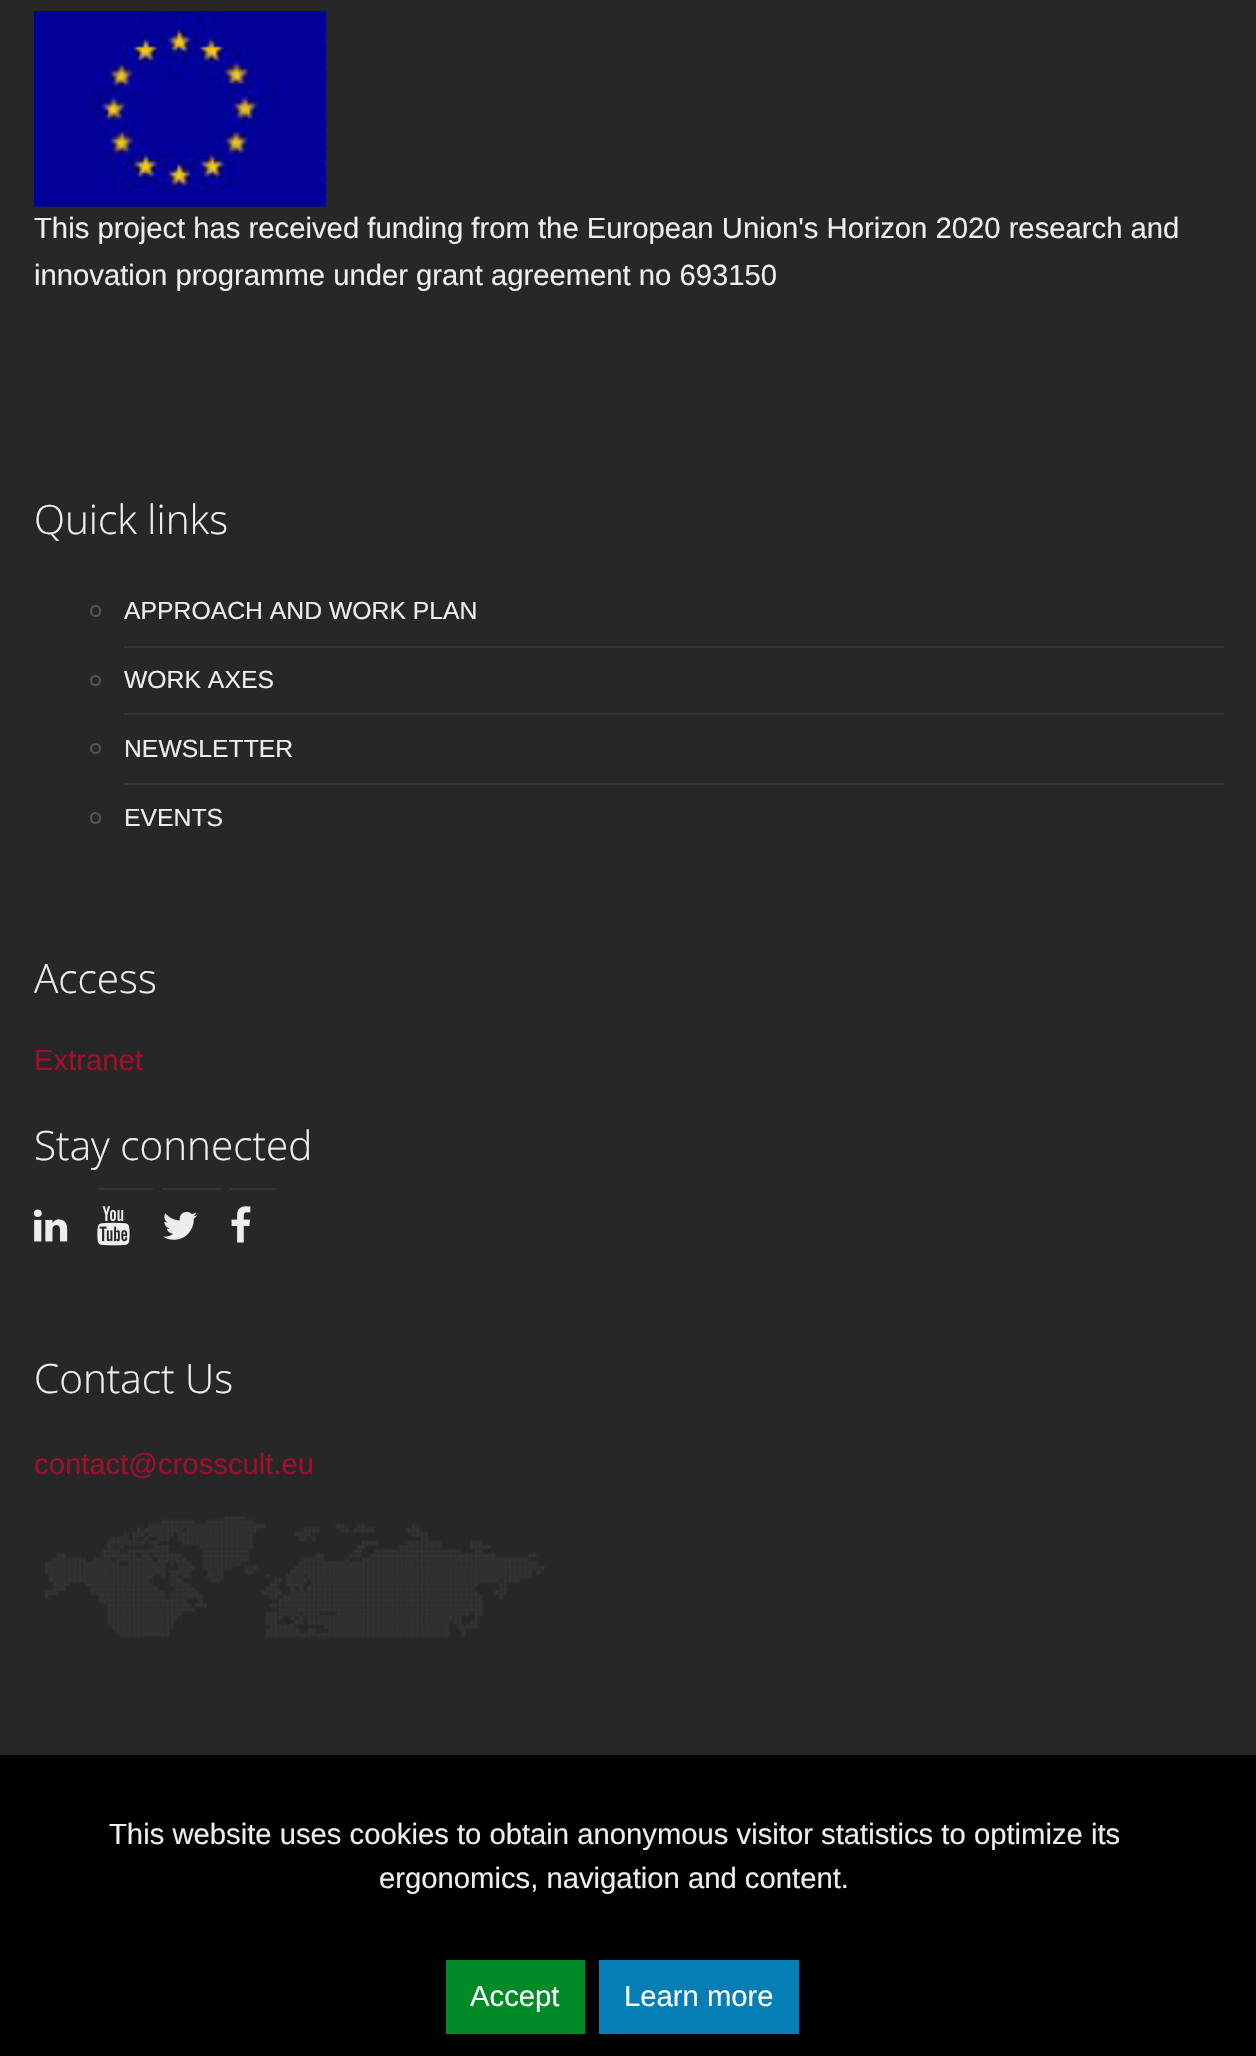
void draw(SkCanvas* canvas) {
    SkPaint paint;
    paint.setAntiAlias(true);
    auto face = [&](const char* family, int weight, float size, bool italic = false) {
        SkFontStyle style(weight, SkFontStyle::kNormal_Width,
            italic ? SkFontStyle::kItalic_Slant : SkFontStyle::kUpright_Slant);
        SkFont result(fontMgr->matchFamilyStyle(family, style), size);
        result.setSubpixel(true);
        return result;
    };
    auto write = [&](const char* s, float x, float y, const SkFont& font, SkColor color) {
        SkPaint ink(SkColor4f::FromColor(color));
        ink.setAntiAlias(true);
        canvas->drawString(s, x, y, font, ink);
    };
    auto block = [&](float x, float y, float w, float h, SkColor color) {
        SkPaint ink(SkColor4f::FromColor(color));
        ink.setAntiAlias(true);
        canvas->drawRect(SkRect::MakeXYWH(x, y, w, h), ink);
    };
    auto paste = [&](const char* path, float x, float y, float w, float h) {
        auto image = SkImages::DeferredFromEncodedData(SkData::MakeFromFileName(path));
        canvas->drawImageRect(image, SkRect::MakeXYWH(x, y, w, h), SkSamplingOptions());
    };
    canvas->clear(SkColorSetRGB(39, 39, 39));
    paste("pic1.png", 33, 11, 294, 196);
    auto kFont1 = face("Liberation Sans", 400, 29.25f);
    write("This project has received funding from the European Union's Horizon 2020 research and", 34, 238, kFont1, SkColorSetRGB(238, 238, 238));
    write("innovation programme under grant agreement no 693150", 34, 285, kFont1, SkColorSetRGB(238, 238, 238));
    auto kFont2 = face("Open Sans", 300, 40.5f);
    write("Quick links", 34, 534, kFont2, SkColorSetRGB(238, 238, 238));
    paint.setStyle(SkPaint::kStroke_Style);
    paint.setStrokeWidth(2);
    paint.setColor(SkColorSetRGB(85, 85, 85));
    canvas->drawRoundRect(SkRect::MakeXYWH(91, 606, 9, 10), 4.5f, 4.5f, paint);
    auto kFont3 = face("Liberation Sans", 400, 24.75f);
    write("APPROACH AND WORK PLAN", 124, 619, kFont3, SkColorSetRGB(238, 238, 238));
    block(124, 646, 1100, 2, SkColorSetRGB(53, 53, 53));
    canvas->drawCircle(95.5f, 680.5f, 4.5f, paint);
    write("WORK AXES", 124, 688, kFont3, SkColorSetRGB(238, 238, 238));
    block(124, 713, 1100, 2, SkColorSetRGB(53, 53, 53));
    canvas->drawCircle(95.5f, 748.5f, 4.5f, paint);
    write("NEWSLETTER", 124, 757, kFont3, SkColorSetRGB(238, 238, 238));
    block(124, 783, 1100, 2, SkColorSetRGB(53, 53, 53));
    canvas->drawRoundRect(SkRect::MakeXYWH(91, 813, 9, 10), 4.5f, 4.5f, paint);
    write("EVENTS", 124, 826, kFont3, SkColorSetRGB(238, 238, 238));
    write("Access", 34, 993, kFont2, SkColorSetRGB(238, 238, 238));
    write("Extranet", 34, 1070, kFont1, SkColorSetRGB(161, 15, 43));
    write("Stay connected", 34, 1160, kFont2, SkColorSetRGB(238, 238, 238));
    paste("pic2.png", 33, 1209, 35, 33);
    block(97, 1188, 56, 2, SkColorSetRGB(53, 53, 53));
    paste("pic3.png", 97, 1206, 33, 40);
    block(162, 1188, 59, 2, SkColorSetRGB(53, 53, 53));
    paste("pic4.png", 163, 1211, 35, 29);
    block(230, 1188, 45, 2, SkColorSetRGB(53, 53, 53));
    paste("pic5.png", 231, 1206, 20, 37);
    paste("pic6.png", 45, 1516, 500, 122);
    write("Contact Us", 34, 1393, kFont2, SkColorSetRGB(238, 238, 238));
    write("contact@crosscult.eu", 34, 1474, kFont1, SkColorSetRGB(161, 15, 43));
    block(0, 1755, 1256, 301, SK_ColorBLACK);
    write("This website uses cookies to obtain anonymous visitor statistics to optimize its", 109, 1844, kFont1, SkColorSetRGB(238, 238, 238));
    write("ergonomics, navigation and content.", 379, 1888, kFont1, SkColorSetRGB(238, 238, 238));
    block(446, 1960, 139, 74, SkColorSetRGB(0, 138, 40));
    write("Accept", 470, 2006, kFont1, SK_ColorWHITE);
    block(599, 1960, 200, 74, SkColorSetRGB(5, 126, 182));
    write("Learn more", 624, 2006, kFont1, SK_ColorWHITE);
}
